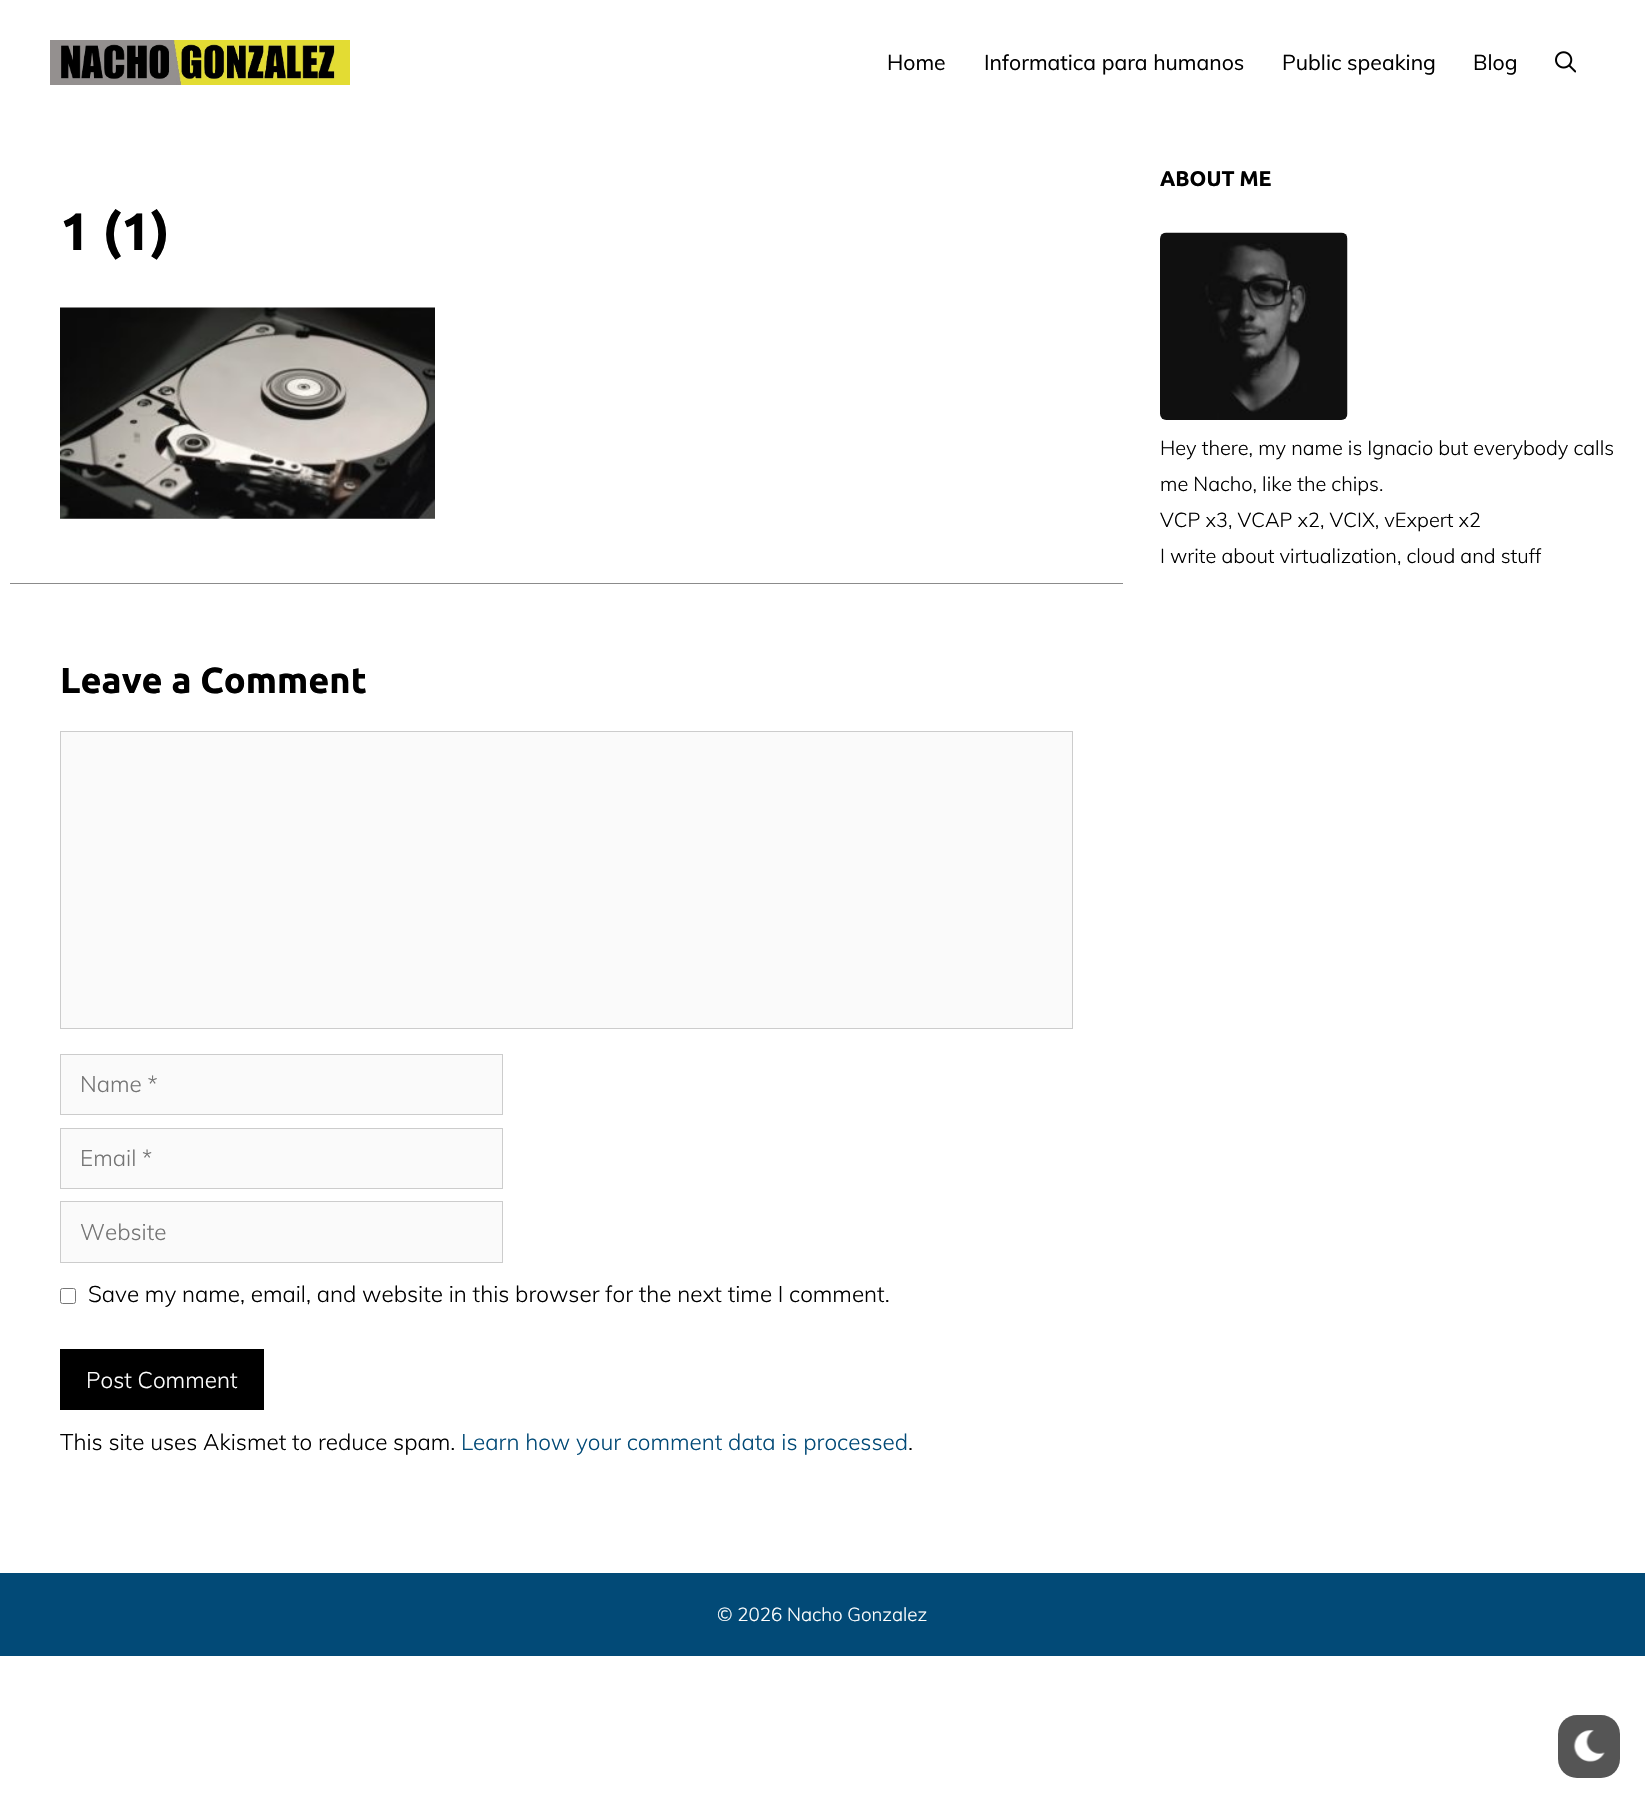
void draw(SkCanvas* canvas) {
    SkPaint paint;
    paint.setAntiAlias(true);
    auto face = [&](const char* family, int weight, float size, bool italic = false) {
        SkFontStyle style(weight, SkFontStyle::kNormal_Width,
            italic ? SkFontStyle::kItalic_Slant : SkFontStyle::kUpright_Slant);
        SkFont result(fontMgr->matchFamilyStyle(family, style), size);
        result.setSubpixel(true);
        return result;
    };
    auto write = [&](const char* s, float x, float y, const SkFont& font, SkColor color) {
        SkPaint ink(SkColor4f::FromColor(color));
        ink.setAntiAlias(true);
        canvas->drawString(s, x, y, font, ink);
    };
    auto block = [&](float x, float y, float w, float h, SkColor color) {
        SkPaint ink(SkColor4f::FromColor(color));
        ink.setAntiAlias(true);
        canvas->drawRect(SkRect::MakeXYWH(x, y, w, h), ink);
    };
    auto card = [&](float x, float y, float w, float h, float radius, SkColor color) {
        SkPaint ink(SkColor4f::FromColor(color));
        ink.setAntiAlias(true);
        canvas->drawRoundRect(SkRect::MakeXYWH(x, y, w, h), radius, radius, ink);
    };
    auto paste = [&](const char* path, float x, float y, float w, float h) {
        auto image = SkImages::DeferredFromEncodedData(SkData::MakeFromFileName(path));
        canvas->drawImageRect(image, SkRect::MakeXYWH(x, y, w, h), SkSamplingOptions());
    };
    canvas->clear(SK_ColorWHITE);
    paste("pic1.png", 50, 40, 300, 45);
    auto kFont1 = face("Muli", 400, 21.25f);
    write("Home", 887, 70, kFont1, SK_ColorBLACK);
    write("Informatica para humanos", 984, 70, kFont1, SK_ColorBLACK);
    write("Public speaking", 1282, 70, kFont1, SK_ColorBLACK);
    write("Blog", 1473, 70, kFont1, SK_ColorBLACK);
    paste("pic2.png", 1555, 51, 21, 22);
    block(10, 583, 1113, 1, SkColorSetRGB(139, 139, 139));
    auto kFont2 = face("Ubuntu", 700, 52.5f);
    write("1 (1)", 60, 250, kFont2, SK_ColorBLACK);
    paste("pic3.png", 60, 307, 375, 212);
    auto kFont3 = face("Ubuntu", 700, 36.25f);
    write("Leave a Comment", 60, 693, kFont3, SK_ColorBLACK);
    paint.setColor(SkColorSetRGB(250, 250, 250));
    canvas->drawRect(SkRect::MakeXYWH(60.5f, 731.5f, 1012, 297), paint);
    paint.setStyle(SkPaint::kStroke_Style);
    paint.setStrokeWidth(1);
    paint.setColor(SkColorSetRGB(204, 204, 204));
    canvas->drawRect(SkRect::MakeXYWH(60.5f, 731.5f, 1012, 297), paint);
    paint.setStyle(SkPaint::kFill_Style);
    paint.setColor(SkColorSetRGB(250, 250, 250));
    canvas->drawRect(SkRect::MakeXYWH(60.5f, 1054.5f, 442, 60), paint);
    paint.setStyle(SkPaint::kStroke_Style);
    paint.setColor(SkColorSetRGB(204, 204, 204));
    canvas->drawRect(SkRect::MakeXYWH(60.5f, 1054.5f, 442, 60), paint);
    auto kFont4 = face("Muli", 300, 22.5f);
    write("Name *", 80, 1092, kFont4, SkColorSetRGB(117, 117, 117));
    paint.setStyle(SkPaint::kFill_Style);
    paint.setColor(SkColorSetRGB(250, 250, 250));
    canvas->drawRect(SkRect::MakeXYWH(60.5f, 1128.5f, 442, 60), paint);
    paint.setStyle(SkPaint::kStroke_Style);
    paint.setColor(SkColorSetRGB(204, 204, 204));
    canvas->drawRect(SkRect::MakeXYWH(60.5f, 1128.5f, 442, 60), paint);
    write("Email *", 80, 1166, kFont4, SkColorSetRGB(117, 117, 117));
    paint.setStyle(SkPaint::kFill_Style);
    paint.setColor(SkColorSetRGB(250, 250, 250));
    canvas->drawRect(SkRect::MakeXYWH(60.5f, 1201.5f, 442, 61), paint);
    paint.setStyle(SkPaint::kStroke_Style);
    paint.setColor(SkColorSetRGB(204, 204, 204));
    canvas->drawRect(SkRect::MakeXYWH(60.5f, 1201.5f, 442, 61), paint);
    write("Website", 80, 1240, kFont4, SkColorSetRGB(117, 117, 117));
    paint.setColor(SkColorSetRGB(118, 118, 118));
    canvas->drawRoundRect(SkRect::MakeXYWH(60.5f, 1288.5f, 15, 15), 2, 2, paint);
    write("Save my name, email, and website in this browser for the next time I comment.", 88, 1302, kFont4, SK_ColorBLACK);
    block(60, 1349, 204, 61, SK_ColorBLACK);
    write("Post Comment", 86, 1388, kFont4, SK_ColorWHITE);
    write("This site uses Akismet to reduce spam.", 60, 1450, kFont4, SK_ColorBLACK);
    write("Learn how your comment data is processed", 461, 1450, kFont4, SkColorSetRGB(2, 74, 119));
    write(".", 908, 1450, kFont4, SK_ColorBLACK);
    auto kFont5 = face("Ubuntu", 700, 21.25f);
    write("ABOUT ME", 1160, 186, kFont5, SK_ColorBLACK);
    paste("pic4.png", 1160, 232, 188, 188);
    auto kFont6 = face("Muli", 300, 20);
    write("Hey there, my name is Ignacio but everybody calls", 1160, 455, kFont6, SK_ColorBLACK);
    write("me Nacho, like the chips.", 1160, 491, kFont6, SK_ColorBLACK);
    write("VCP x3, VCAP x2, VCIX, vExpert x2", 1160, 527, kFont6, SK_ColorBLACK);
    write("I write about virtualization, cloud and stuff", 1160, 563, kFont6, SK_ColorBLACK);
    block(0, 1573, 1645, 83, SkColorSetRGB(2, 74, 119));
    auto kFont7 = face("Muli", 300, 18.75f);
    write("© 2026 Nacho Gonzalez", 717, 1621, kFont7, SK_ColorWHITE);
    card(1558, 1715, 62, 63, 19, SkColorSetRGB(85, 85, 85));
    paste("pic5.png", 1573, 1730, 32, 32);
}
